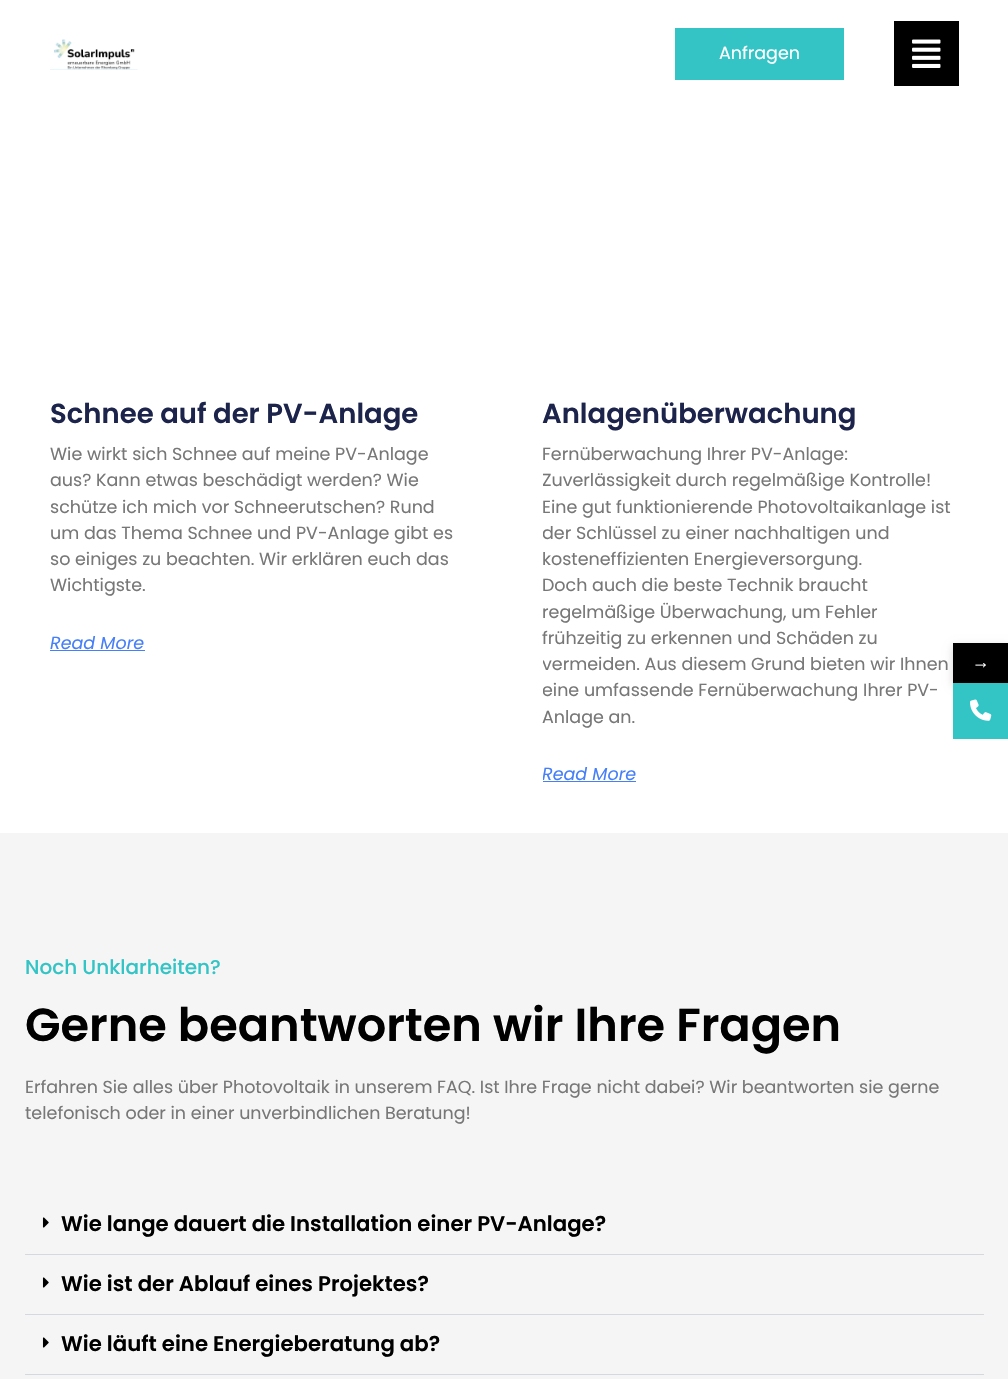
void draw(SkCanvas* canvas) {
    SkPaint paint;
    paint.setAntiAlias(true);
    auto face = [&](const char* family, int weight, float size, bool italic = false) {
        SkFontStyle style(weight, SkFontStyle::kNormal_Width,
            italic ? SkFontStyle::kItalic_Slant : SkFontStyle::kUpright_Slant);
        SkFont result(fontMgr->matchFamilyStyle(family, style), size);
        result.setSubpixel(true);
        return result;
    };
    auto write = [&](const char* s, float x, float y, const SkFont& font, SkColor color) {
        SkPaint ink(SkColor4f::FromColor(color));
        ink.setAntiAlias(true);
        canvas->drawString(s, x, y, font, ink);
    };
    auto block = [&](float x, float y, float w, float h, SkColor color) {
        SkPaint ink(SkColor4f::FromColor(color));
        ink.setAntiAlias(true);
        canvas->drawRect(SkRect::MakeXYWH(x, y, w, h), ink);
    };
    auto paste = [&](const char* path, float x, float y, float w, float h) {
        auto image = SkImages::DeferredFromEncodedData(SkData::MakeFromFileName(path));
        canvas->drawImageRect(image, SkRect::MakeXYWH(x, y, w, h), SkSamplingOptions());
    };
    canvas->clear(SK_ColorWHITE);
    paste("pic1.png", 50, 39, 88, 31);
    block(675, 28, 169, 52, SkColorSetRGB(52, 196, 197));
    auto kFont1 = face("Poppins", 400, 17.5f);
    write("Anfragen", 719, 59, kFont1, SK_ColorWHITE);
    block(894, 21, 65, 65, SK_ColorBLACK);
    paste("pic2.png", 912, 39, 29, 29);
    auto kFont2 = face("Poppins", 600, 27.5f);
    write("Schnee auf der PV-Anlage", 50, 423, kFont2, SkColorSetRGB(28, 36, 75));
    write("Wie wirkt sich Schnee auf meine PV-Anlage", 50, 460, kFont1, SkColorSetRGB(119, 119, 119));
    write("aus? Kann etwas beschädigt werden? Wie", 50, 486, kFont1, SkColorSetRGB(119, 119, 119));
    write("schütze ich mich vor Schneerutschen? Rund", 50, 513, kFont1, SkColorSetRGB(119, 119, 119));
    write("um das Thema Schnee und PV-Anlage gibt es", 50, 539, kFont1, SkColorSetRGB(119, 119, 119));
    write("so einiges zu beachten. Wir erklären euch das", 50, 565, kFont1, SkColorSetRGB(119, 119, 119));
    write("Wichtigste.", 50, 591, kFont1, SkColorSetRGB(119, 119, 119));
    auto kFont3 = face("Poppins", 400, 17.5f, true);
    write("Read More", 50, 649, kFont3, SkColorSetRGB(70, 127, 247));
    block(50, 650, 95, 1, SkColorSetRGB(70, 127, 247));
    write("Anlagenüberwachung", 542, 423, kFont2, SkColorSetRGB(28, 36, 75));
    write("Fernüberwachung Ihrer PV-Anlage:", 542, 460, kFont1, SkColorSetRGB(119, 119, 119));
    canvas->save();
    canvas->clipPath(SkPathBuilder().moveTo(547, 15).lineTo(955, 15).cubicTo(957, 15, 959, 17, 959, 19).lineTo(959, 804).cubicTo(959, 806, 957, 808, 955, 808).lineTo(547, 808).cubicTo(545, 808, 543, 806, 543, 804).lineTo(543, 19).cubicTo(543, 17, 545, 15, 547, 15).close().detach(), true);
    write("Zuverlässigkeit durch regelmäßige Kontrolle!", 542, 486, kFont1, SkColorSetRGB(119, 119, 119));
    canvas->restore();
    write("Eine gut funktionierende Photovoltaikanlage ist", 542, 513, kFont1, SkColorSetRGB(119, 119, 119));
    canvas->save();
    canvas->clipPath(SkPathBuilder().moveTo(547, 15).lineTo(955, 15).cubicTo(957, 15, 959, 17, 959, 19).lineTo(959, 804).cubicTo(959, 806, 957, 808, 955, 808).lineTo(547, 808).cubicTo(545, 808, 543, 806, 543, 804).lineTo(543, 19).cubicTo(543, 17, 545, 15, 547, 15).close().detach(), true);
    write("der Schlüssel zu einer nachhaltigen und", 542, 539, kFont1, SkColorSetRGB(119, 119, 119));
    canvas->restore();
    write("kosteneffizienten Energieversorgung.", 542, 565, kFont1, SkColorSetRGB(119, 119, 119));
    write("Doch auch die beste Technik braucht", 542, 591, kFont1, SkColorSetRGB(119, 119, 119));
    write("regelmäßige Überwachung, um Fehler", 542, 618, kFont1, SkColorSetRGB(119, 119, 119));
    write("frühzeitig zu erkennen und Schäden zu", 542, 644, kFont1, SkColorSetRGB(119, 119, 119));
    canvas->save();
    canvas->clipPath(SkPathBuilder().moveTo(547, 15).lineTo(955, 15).cubicTo(957, 15, 959, 17, 959, 19).lineTo(959, 804).cubicTo(959, 806, 957, 808, 955, 808).lineTo(547, 808).cubicTo(545, 808, 543, 806, 543, 804).lineTo(543, 19).cubicTo(543, 17, 545, 15, 547, 15).close().detach(), true);
    write("vermeiden. Aus diesem Grund bieten wir Ihnen", 542, 670, kFont1, SkColorSetRGB(119, 119, 119));
    write("eine umfassende Fernüberwachung Ihrer PV-", 542, 696, kFont1, SkColorSetRGB(119, 119, 119));
    canvas->restore();
    write("Anlage an.", 542, 723, kFont1, SkColorSetRGB(119, 119, 119));
    canvas->save();
    canvas->clipPath(SkPathBuilder().moveTo(547, 15).lineTo(955, 15).cubicTo(957, 15, 959, 17, 959, 19).lineTo(959, 804).cubicTo(959, 806, 957, 808, 955, 808).lineTo(547, 808).cubicTo(545, 808, 543, 806, 543, 804).lineTo(543, 19).cubicTo(543, 17, 545, 15, 547, 15).close().detach(), true);
    write("Read More", 542, 780, kFont3, SkColorSetRGB(70, 127, 247));
    canvas->restore();
    block(543, 781, 93, 1, SkColorSetRGB(70, 127, 247));
    paint.setColor(SkColorSetARGB(41, 0, 0, 0));
    paint.setMaskFilter(SkMaskFilter::MakeBlur(kNormal_SkBlurStyle, 4));
    canvas->drawRect(SkRect::MakeXYWH(953, 646, 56, 40), paint);
    paint.setMaskFilter(nullptr);
    block(953, 643, 55, 40, SK_ColorBLACK);
    auto kFont4 = face("Liberation Serif", 400, 17.5f);
    write("→", 972, 668, kFont4, SK_ColorWHITE);
    block(953, 683, 55, 56, SkColorSetRGB(51, 197, 198));
    paste("pic3.png", 970, 699, 22, 22);
    block(0, 833, 1008, 546, SkColorSetRGB(245, 245, 245));
    auto kFont5 = face("Poppins", 500, 20);
    write("Noch Unklarheiten?", 25, 974, kFont5, SkColorSetRGB(52, 196, 197));
    auto kFont6 = face("Poppins", 600, 46.25f);
    write("Gerne beantworten wir Ihre Fragen", 25, 1041, kFont6, SK_ColorBLACK);
    write("Erfahren Sie alles über Photovoltaik in unserem FAQ. Ist Ihre Frage nicht dabei? Wir beantworten sie gerne", 25, 1093, kFont1, SkColorSetRGB(119, 119, 119));
    write("telefonisch oder in einer unverbindlichen Beratung!", 25, 1119, kFont1, SkColorSetRGB(119, 119, 119));
    block(25, 1254, 959, 1, SkColorSetRGB(213, 216, 220));
    paste("pic4.png", 42, 1217, 7, 11);
    auto kFont7 = face("Poppins", 600, 21.25f);
    write("Wie lange dauert die Installation einer PV-Anlage?", 61, 1231, kFont7, SK_ColorBLACK);
    block(25, 1314, 959, 1, SkColorSetRGB(213, 216, 220));
    paste("pic4.png", 42, 1277, 7, 11);
    write("Wie ist der Ablauf eines Projektes?", 61, 1291, kFont7, SK_ColorBLACK);
    block(25, 1374, 959, 1, SkColorSetRGB(213, 216, 220));
    paste("pic4.png", 42, 1337, 7, 11);
    write("Wie läuft eine Energieberatung ab?", 61, 1351, kFont7, SK_ColorBLACK);
}
